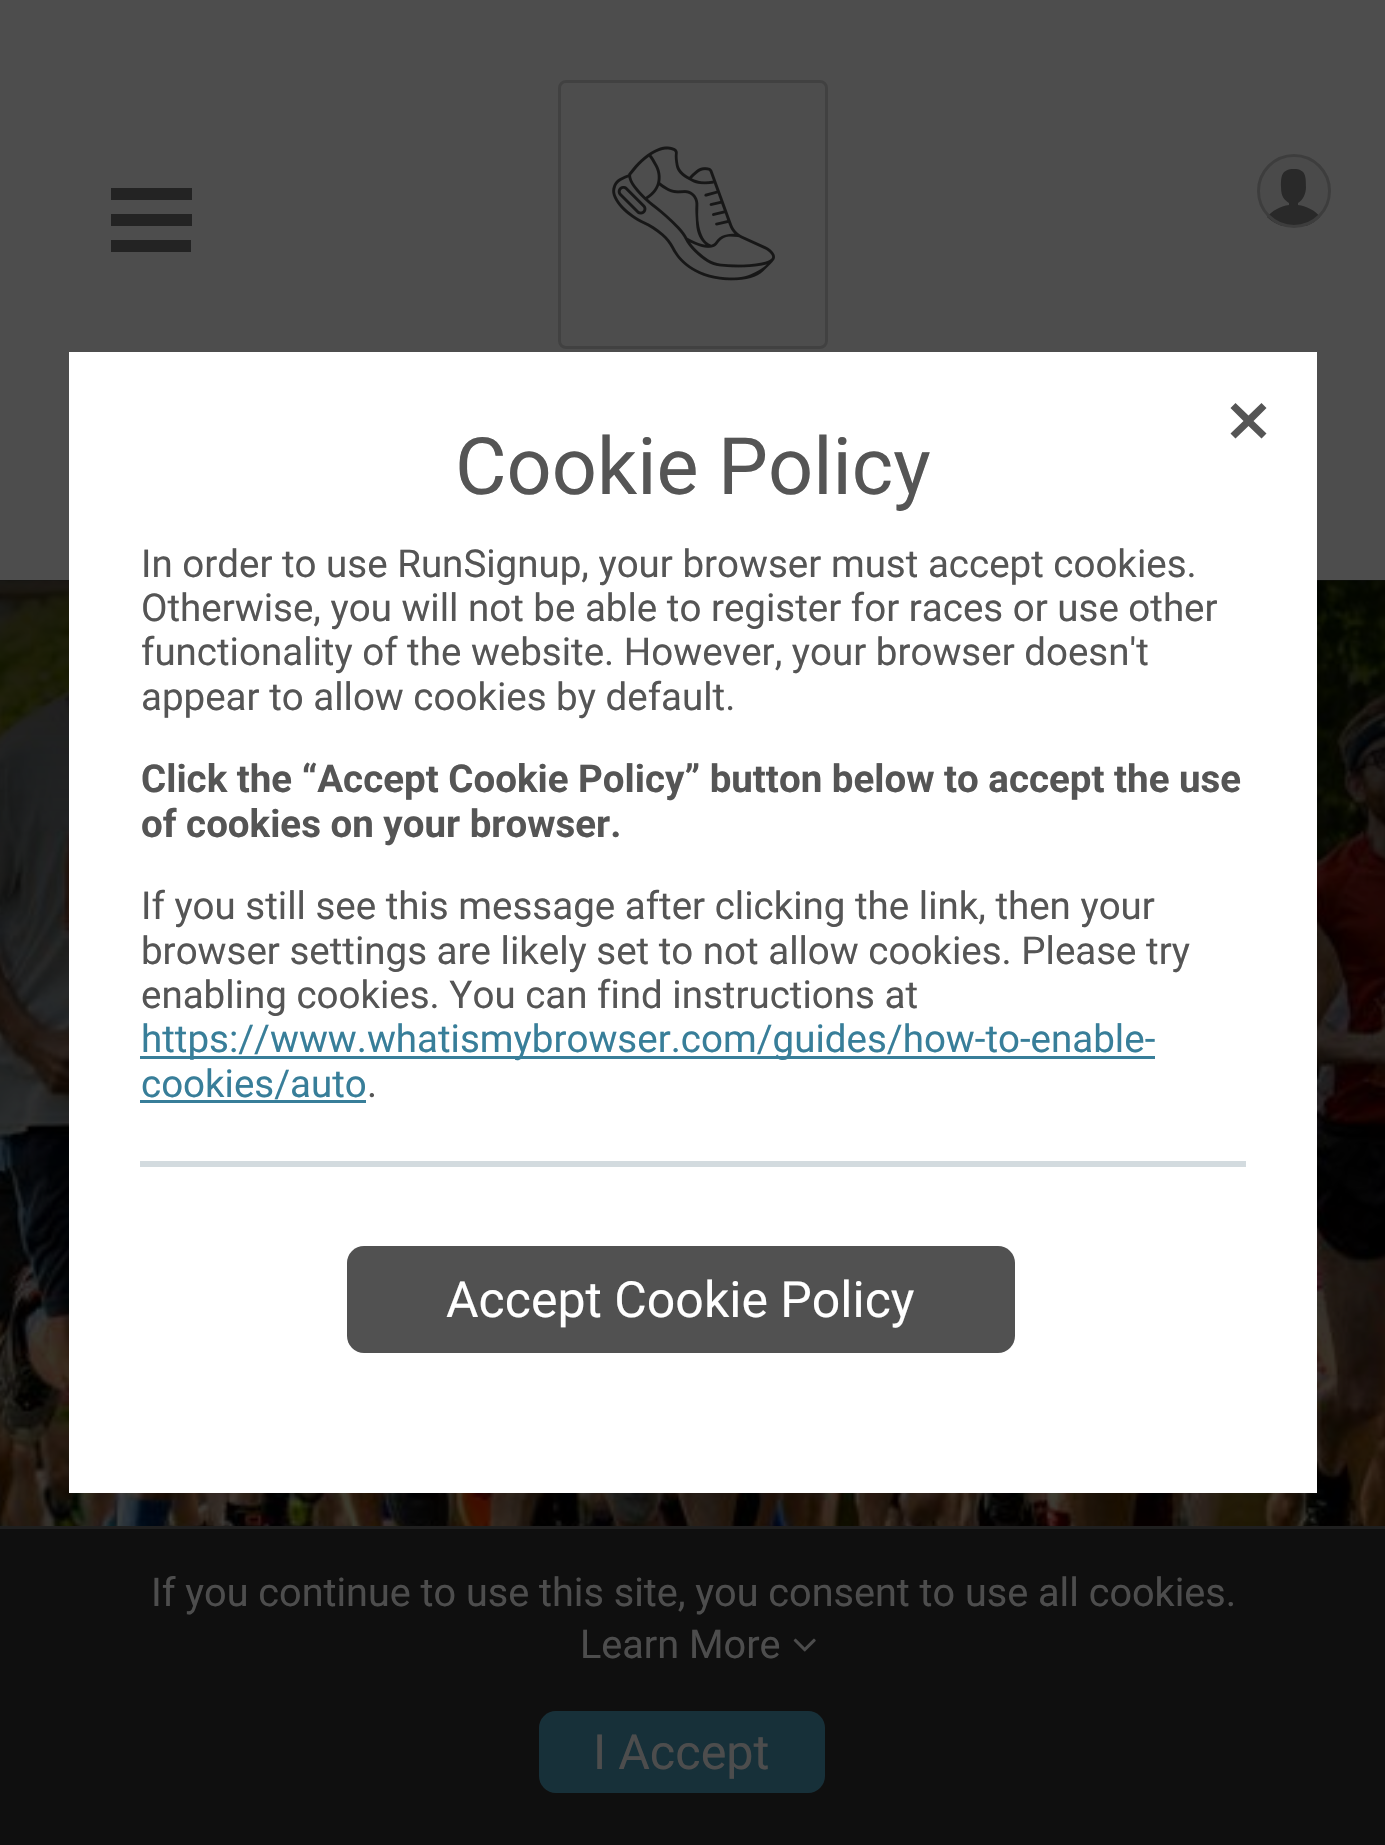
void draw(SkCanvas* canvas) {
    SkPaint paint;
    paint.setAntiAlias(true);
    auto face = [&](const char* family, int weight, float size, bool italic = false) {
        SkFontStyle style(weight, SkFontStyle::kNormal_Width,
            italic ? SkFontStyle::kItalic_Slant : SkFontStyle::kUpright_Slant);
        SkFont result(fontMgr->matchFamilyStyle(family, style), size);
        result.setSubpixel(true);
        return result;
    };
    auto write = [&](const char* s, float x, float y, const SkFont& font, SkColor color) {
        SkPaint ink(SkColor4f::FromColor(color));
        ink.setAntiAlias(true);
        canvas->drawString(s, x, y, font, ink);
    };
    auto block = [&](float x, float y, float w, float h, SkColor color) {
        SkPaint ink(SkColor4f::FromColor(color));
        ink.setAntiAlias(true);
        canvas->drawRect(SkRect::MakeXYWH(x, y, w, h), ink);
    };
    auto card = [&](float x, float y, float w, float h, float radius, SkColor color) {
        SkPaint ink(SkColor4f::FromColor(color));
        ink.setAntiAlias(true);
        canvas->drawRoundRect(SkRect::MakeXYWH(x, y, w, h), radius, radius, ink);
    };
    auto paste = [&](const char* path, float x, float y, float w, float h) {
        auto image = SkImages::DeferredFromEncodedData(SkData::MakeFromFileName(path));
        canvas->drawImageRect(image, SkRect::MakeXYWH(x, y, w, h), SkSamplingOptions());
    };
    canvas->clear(SkColorSetRGB(77, 77, 77));
    paint.setColor(SkColorSetRGB(35, 35, 35));
    canvas->drawPath(SkPathBuilder().moveTo(192, 188).lineTo(192, 200).lineTo(111, 200).lineTo(111, 188).close().moveTo(192, 214).lineTo(192, 226).lineTo(111, 226).lineTo(111, 214).close().moveTo(191, 240).lineTo(191, 252).lineTo(111, 252).lineTo(111, 240).close().detach(), paint);
    paint.setStyle(SkPaint::kStroke_Style);
    paint.setStrokeWidth(3);
    paint.setColor(SkColorSetRGB(65, 65, 65));
    canvas->drawRoundRect(SkRect::MakeXYWH(559.5f, 81.5f, 267, 266), 6.5f, 6.5f, paint);
    paste("pic1.png", 612, 146, 163, 135);
    canvas->save();
    canvas->clipPath(SkPathBuilder().moveTo(1294, 154).cubicTo(1314.5f, 154, 1331, 170.5f, 1331, 191).cubicTo(1331, 211.5f, 1314.5f, 228, 1294, 228).cubicTo(1273.5f, 228, 1257, 211.5f, 1257, 191).cubicTo(1257, 170.5f, 1273.5f, 154, 1294, 154).close().detach(), true);
    block(1260, 157, 68, 69, SkColorSetRGB(74, 74, 74));
    canvas->restore();
    paint.setStyle(SkPaint::kFill_Style);
    paint.setColor(SkColorSetRGB(41, 41, 41));
    canvas->drawPath(SkPathBuilder().moveTo(1298, 205).cubicTo(1307, 206, 1316, 211, 1320, 217).cubicTo(1316, 221, 1312, 224, 1306, 226).lineTo(1282, 226).cubicTo(1276, 224, 1271, 221, 1267, 217).cubicTo(1272, 211, 1280, 206, 1289, 205).lineTo(1289, 203).cubicTo(1285, 200, 1281, 198, 1281, 187).cubicTo(1281, 177, 1281, 169, 1294, 169).cubicTo(1306, 169, 1306, 177, 1306, 187).cubicTo(1306, 194, 1303, 200, 1298, 203).close().detach(), paint);
    paint.setStyle(SkPaint::kStroke_Style);
    paint.setColor(SkColorSetRGB(61, 61, 61));
    canvas->drawCircle(1294, 191, 35.5f, paint);
    block(0, 580, 1385, 1, SkColorSetRGB(37, 37, 37));
    paste("pic2.png", 0, 580, 1385, 946);
    paint.setStyle(SkPaint::kFill_Style);
    {
        const SkColor colors[] = {SkColorSetARGB(166, 0, 0, 0), SkColorSetARGB(0, 0, 0, 0)};
        const float stops[] = {0, 1};
        const SkPoint ends[] = {{693, 423}, {693, 1469}};
        paint.setShader(SkGradientShader::MakeLinear(ends, colors, stops, 2, SkTileMode::kClamp));
        paint.setAlpha(255);
    }
    canvas->drawRect(SkRect::MakeXYWH(0, 580, 1385, 823), paint);
    paint.setStyle(SkPaint::kStroke_Style);
    paint.setShader(nullptr);
    paint.setColor(SK_ColorWHITE);
    canvas->drawRect(SkRect::MakeXYWH(70.5f, 353.5f, 1245, 1138), paint);
    block(72, 355, 1242, 1135, SK_ColorWHITE);
    paint.setStyle(SkPaint::kFill_Style);
    paint.setColor(SkColorSetRGB(85, 85, 85));
    canvas->drawPath(SkPathBuilder().moveTo(1230.5f, 433.5f).lineTo(1243.5f, 421).lineTo(1230.5f, 408).lineTo(1235.5f, 403).lineTo(1248.5f, 415.5f).lineTo(1261.5f, 403).lineTo(1266.5f, 408).lineTo(1253.5f, 421).lineTo(1266.5f, 433.5f).lineTo(1261.5f, 438.5f).lineTo(1248.5f, 426).lineTo(1235.5f, 438.5f).close().detach(), paint);
    auto kFont1 = face("Roboto", 400, 79.25f);
    write("Cookie Policy", 455, 494, kFont1, SkColorSetRGB(85, 85, 85));
    auto kFont2 = face("Roboto", 400, 38.5f);
    write("In order to use RunSignup, your browser must accept cookies.", 141, 577, kFont2, SkColorSetRGB(85, 85, 85));
    write("Otherwise, you will not be able to register for races or use other", 141, 621, kFont2, SkColorSetRGB(85, 85, 85));
    write("functionality of the website. However, your browser doesn't", 141, 665, kFont2, SkColorSetRGB(85, 85, 85));
    write("appear to allow cookies by default.", 141, 710, kFont2, SkColorSetRGB(85, 85, 85));
    auto kFont3 = face("Roboto", 700, 38.5f);
    write("Click the “Accept Cookie Policy” button below to accept the use", 141, 792, kFont3, SkColorSetRGB(85, 85, 85));
    write("of cookies on your browser.", 141, 837, kFont3, SkColorSetRGB(85, 85, 85));
    write("If you still see this message after clicking the link, then your", 141, 919, kFont2, SkColorSetRGB(85, 85, 85));
    write("browser settings are likely set to not allow cookies. Please try", 141, 964, kFont2, SkColorSetRGB(85, 85, 85));
    write("enabling cookies. You can find instructions at", 141, 1008, kFont2, SkColorSetRGB(85, 85, 85));
    block(140, 1056, 1015, 3, SkColorSetRGB(56, 126, 153));
    write("https://www.whatismybrowser.com/guides/how-to-enable-", 141, 1052, kFont2, SkColorSetRGB(56, 126, 153));
    write("cookies/auto", 141, 1097, kFont2, SkColorSetRGB(56, 126, 153));
    block(140, 1100, 226, 3, SkColorSetRGB(56, 126, 153));
    write(".", 367, 1097, kFont2, SkColorSetRGB(85, 85, 85));
    block(140, 1161, 1106, 6, SkColorSetRGB(211, 219, 223));
    card(347, 1246, 668, 107, 17, SkColorSetRGB(81, 81, 81));
    auto kFont4 = face("Roboto", 400, 50);
    write("Accept Cookie Policy", 446, 1317, kFont4, SK_ColorWHITE);
    block(0, 1529, 1385, 316, SkColorSetRGB(15, 15, 15));
    block(0, 1526, 1385, 3, SkColorSetRGB(31, 31, 31));
    auto kFont5 = face("Roboto", 400, 39.6f);
    write("If you continue to use this site, you consent to use all cookies.", 151, 1606, kFont5, SkColorSetRGB(77, 77, 77));
    write("Learn More", 580, 1658, kFont5, SkColorSetRGB(77, 77, 77));
    paste("pic3.png", 793, 1638, 23, 14);
    card(539, 1711, 286, 82, 17, SkColorSetRGB(23, 48, 57));
    auto kFont6 = face("Roboto", 400, 48.5f);
    write("I Accept", 593, 1769, kFont6, SkColorSetRGB(77, 77, 77));
}
